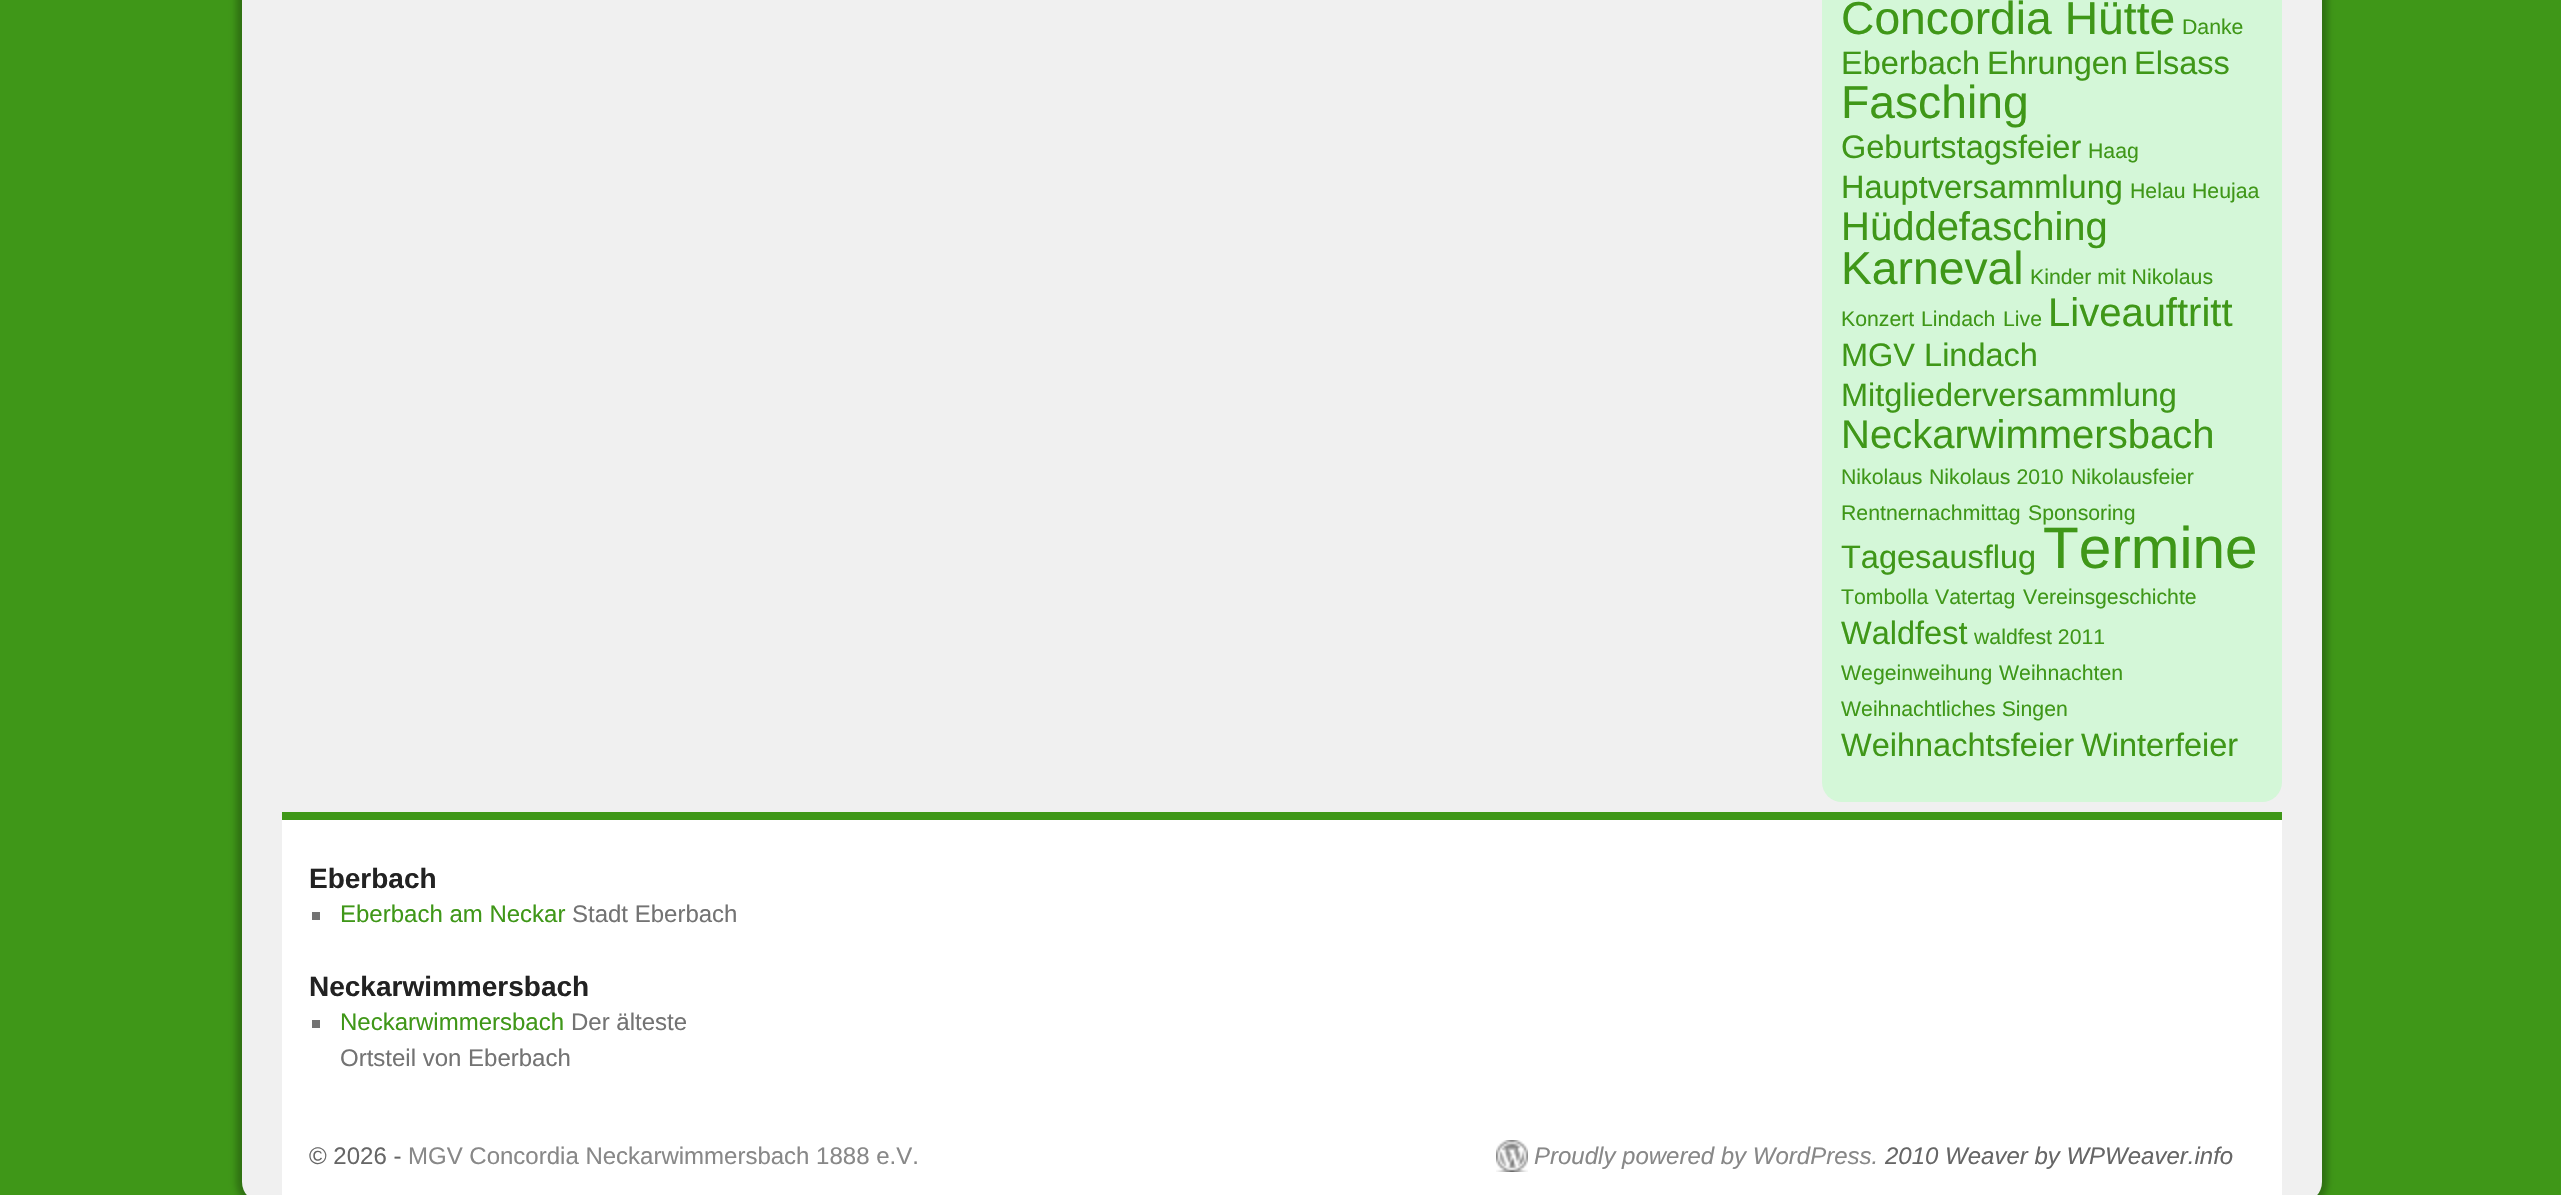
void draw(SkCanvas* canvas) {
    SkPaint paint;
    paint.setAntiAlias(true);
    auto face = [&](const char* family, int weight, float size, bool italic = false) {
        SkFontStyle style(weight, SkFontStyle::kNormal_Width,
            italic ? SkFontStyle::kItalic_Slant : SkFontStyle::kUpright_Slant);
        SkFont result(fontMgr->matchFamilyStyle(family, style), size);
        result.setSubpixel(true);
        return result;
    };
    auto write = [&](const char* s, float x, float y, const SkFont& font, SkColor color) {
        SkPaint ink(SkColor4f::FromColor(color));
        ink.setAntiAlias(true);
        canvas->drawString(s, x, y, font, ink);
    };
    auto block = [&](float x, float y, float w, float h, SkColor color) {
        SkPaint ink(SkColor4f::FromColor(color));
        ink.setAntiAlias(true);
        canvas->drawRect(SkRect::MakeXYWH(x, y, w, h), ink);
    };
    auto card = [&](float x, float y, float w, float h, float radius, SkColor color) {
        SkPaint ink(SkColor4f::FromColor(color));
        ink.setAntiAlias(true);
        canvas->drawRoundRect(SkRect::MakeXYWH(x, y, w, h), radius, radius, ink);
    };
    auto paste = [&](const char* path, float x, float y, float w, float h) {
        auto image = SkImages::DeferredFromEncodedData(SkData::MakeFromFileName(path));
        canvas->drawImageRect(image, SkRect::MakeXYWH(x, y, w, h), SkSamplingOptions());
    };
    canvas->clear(SkColorSetRGB(63, 151, 24));
    paint.setColor(SkColorSetARGB(64, 0, 0, 0));
    paint.setMaskFilter(SkMaskFilter::MakeBlur(kNormal_SkBlurStyle, 3));
    canvas->drawRoundRect(SkRect::MakeXYWH(236, -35, 2092, 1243), 26, 26, paint);
    paint.setMaskFilter(nullptr);
    card(242, -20, 2080, 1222, 20, SkColorSetRGB(240, 240, 240));
    card(1822, -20, 460, 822, 20, SkColorSetRGB(212, 247, 216));
    auto kFont1 = face("Liberation Sans", 400, 46.25f);
    write("Concordia Hütte", 1841, 34, kFont1, SkColorSetRGB(63, 151, 24));
    auto kFont2 = face("Liberation Sans", 400, 21.25f);
    write("Danke", 2182, 34, kFont2, SkColorSetRGB(63, 151, 24));
    auto kFont3 = face("Liberation Sans", 400, 32.5f);
    write("Eberbach", 1841, 74, kFont3, SkColorSetRGB(63, 151, 24));
    write("Ehrungen", 1987, 74, kFont3, SkColorSetRGB(63, 151, 24));
    write("Elsass", 2134, 74, kFont3, SkColorSetRGB(63, 151, 24));
    write("Fasching", 1841, 118, kFont1, SkColorSetRGB(63, 151, 24));
    write("Geburtstagsfeier", 1841, 158, kFont3, SkColorSetRGB(63, 151, 24));
    write("Haag", 2088, 158, kFont2, SkColorSetRGB(63, 151, 24));
    write("Hauptversammlung", 1841, 198, kFont3, SkColorSetRGB(63, 151, 24));
    write("Helau", 2130, 198, kFont2, SkColorSetRGB(63, 151, 24));
    write("Heujaa", 2192, 198, kFont2, SkColorSetRGB(63, 151, 24));
    auto kFont4 = face("Liberation Sans", 400, 40);
    write("Hüddefasching", 1841, 240, kFont4, SkColorSetRGB(63, 151, 24));
    write("Karneval", 1841, 284, kFont1, SkColorSetRGB(63, 151, 24));
    write("Kinder mit Nikolaus", 2030, 284, kFont2, SkColorSetRGB(63, 151, 24));
    write("Konzert", 1841, 326, kFont2, SkColorSetRGB(63, 151, 24));
    write("Lindach", 1921, 326, kFont2, SkColorSetRGB(63, 151, 24));
    write("Live", 2003, 326, kFont2, SkColorSetRGB(63, 151, 24));
    write("Liveauftritt", 2048, 326, kFont4, SkColorSetRGB(63, 151, 24));
    write("MGV Lindach", 1841, 366, kFont3, SkColorSetRGB(63, 151, 24));
    write("Mitgliederversammlung", 1841, 406, kFont3, SkColorSetRGB(63, 151, 24));
    write("Neckarwimmersbach", 1841, 448, kFont4, SkColorSetRGB(63, 151, 24));
    write("Nikolaus", 1841, 484, kFont2, SkColorSetRGB(63, 151, 24));
    write("Nikolaus 2010", 1929, 484, kFont2, SkColorSetRGB(63, 151, 24));
    write("Nikolausfeier", 2071, 484, kFont2, SkColorSetRGB(63, 151, 24));
    write("Rentnernachmittag", 1841, 520, kFont2, SkColorSetRGB(63, 151, 24));
    write("Sponsoring", 2028, 520, kFont2, SkColorSetRGB(63, 151, 24));
    write("Tagesausflug", 1841, 568, kFont3, SkColorSetRGB(63, 151, 24));
    auto kFont5 = face("Liberation Sans", 400, 58.5f);
    write("Termine", 2043, 568, kFont5, SkColorSetRGB(63, 151, 24));
    write("Tombolla", 1841, 604, kFont2, SkColorSetRGB(63, 151, 24));
    write("Vatertag", 1935, 604, kFont2, SkColorSetRGB(63, 151, 24));
    write("Vereinsgeschichte", 2023, 604, kFont2, SkColorSetRGB(63, 151, 24));
    write("Waldfest", 1841, 644, kFont3, SkColorSetRGB(63, 151, 24));
    write("waldfest 2011", 1974, 644, kFont2, SkColorSetRGB(63, 151, 24));
    write("Wegeinweihung", 1841, 680, kFont2, SkColorSetRGB(63, 151, 24));
    write("Weihnachten", 1999, 680, kFont2, SkColorSetRGB(63, 151, 24));
    write("Weihnachtliches Singen", 1841, 716, kFont2, SkColorSetRGB(63, 151, 24));
    write("Weihnachtsfeier", 1841, 756, kFont3, SkColorSetRGB(63, 151, 24));
    write("Winterfeier", 2081, 756, kFont3, SkColorSetRGB(63, 151, 24));
    block(282, 820, 2000, 375, SK_ColorWHITE);
    block(282, 812, 2000, 8, SkColorSetRGB(63, 151, 24));
    auto kFont6 = face("Liberation Sans", 700, 28);
    write("Eberbach", 309, 888, kFont6, SkColorSetRGB(34, 34, 34));
    block(312, 912, 8, 8, SkColorSetRGB(115, 115, 115));
    auto kFont7 = face("Liberation Sans", 400, 24);
    write("Eberbach am Neckar", 340, 922, kFont7, SkColorSetRGB(63, 151, 24));
    write("Stadt Eberbach", 572, 922, kFont7, SkColorSetRGB(115, 115, 115));
    write("Neckarwimmersbach", 309, 996, kFont6, SkColorSetRGB(34, 34, 34));
    block(312, 1020, 8, 8, SkColorSetRGB(115, 115, 115));
    write("Neckarwimmersbach", 340, 1030, kFont7, SkColorSetRGB(63, 151, 24));
    write("Der älteste", 571, 1030, kFont7, SkColorSetRGB(115, 115, 115));
    write("Ortsteil von Eberbach", 340, 1066, kFont7, SkColorSetRGB(115, 115, 115));
    write("© 2026 -", 309, 1164, kFont7, SkColorSetRGB(102, 102, 102));
    write("MGV Concordia Neckarwimmersbach 1888 e.V.", 408, 1164, kFont7, SkColorSetRGB(136, 136, 136));
    paste("pic1.png", 1496, 1140, 32, 32);
    auto kFont8 = face("Liberation Sans", 400, 24, true);
    write("Proudly powered by WordPress.", 1534, 1164, kFont8, SkColorSetRGB(136, 136, 136));
    write("2010 Weaver by WPWeaver.info", 1885, 1164, kFont8, SkColorSetRGB(102, 102, 102));
}
